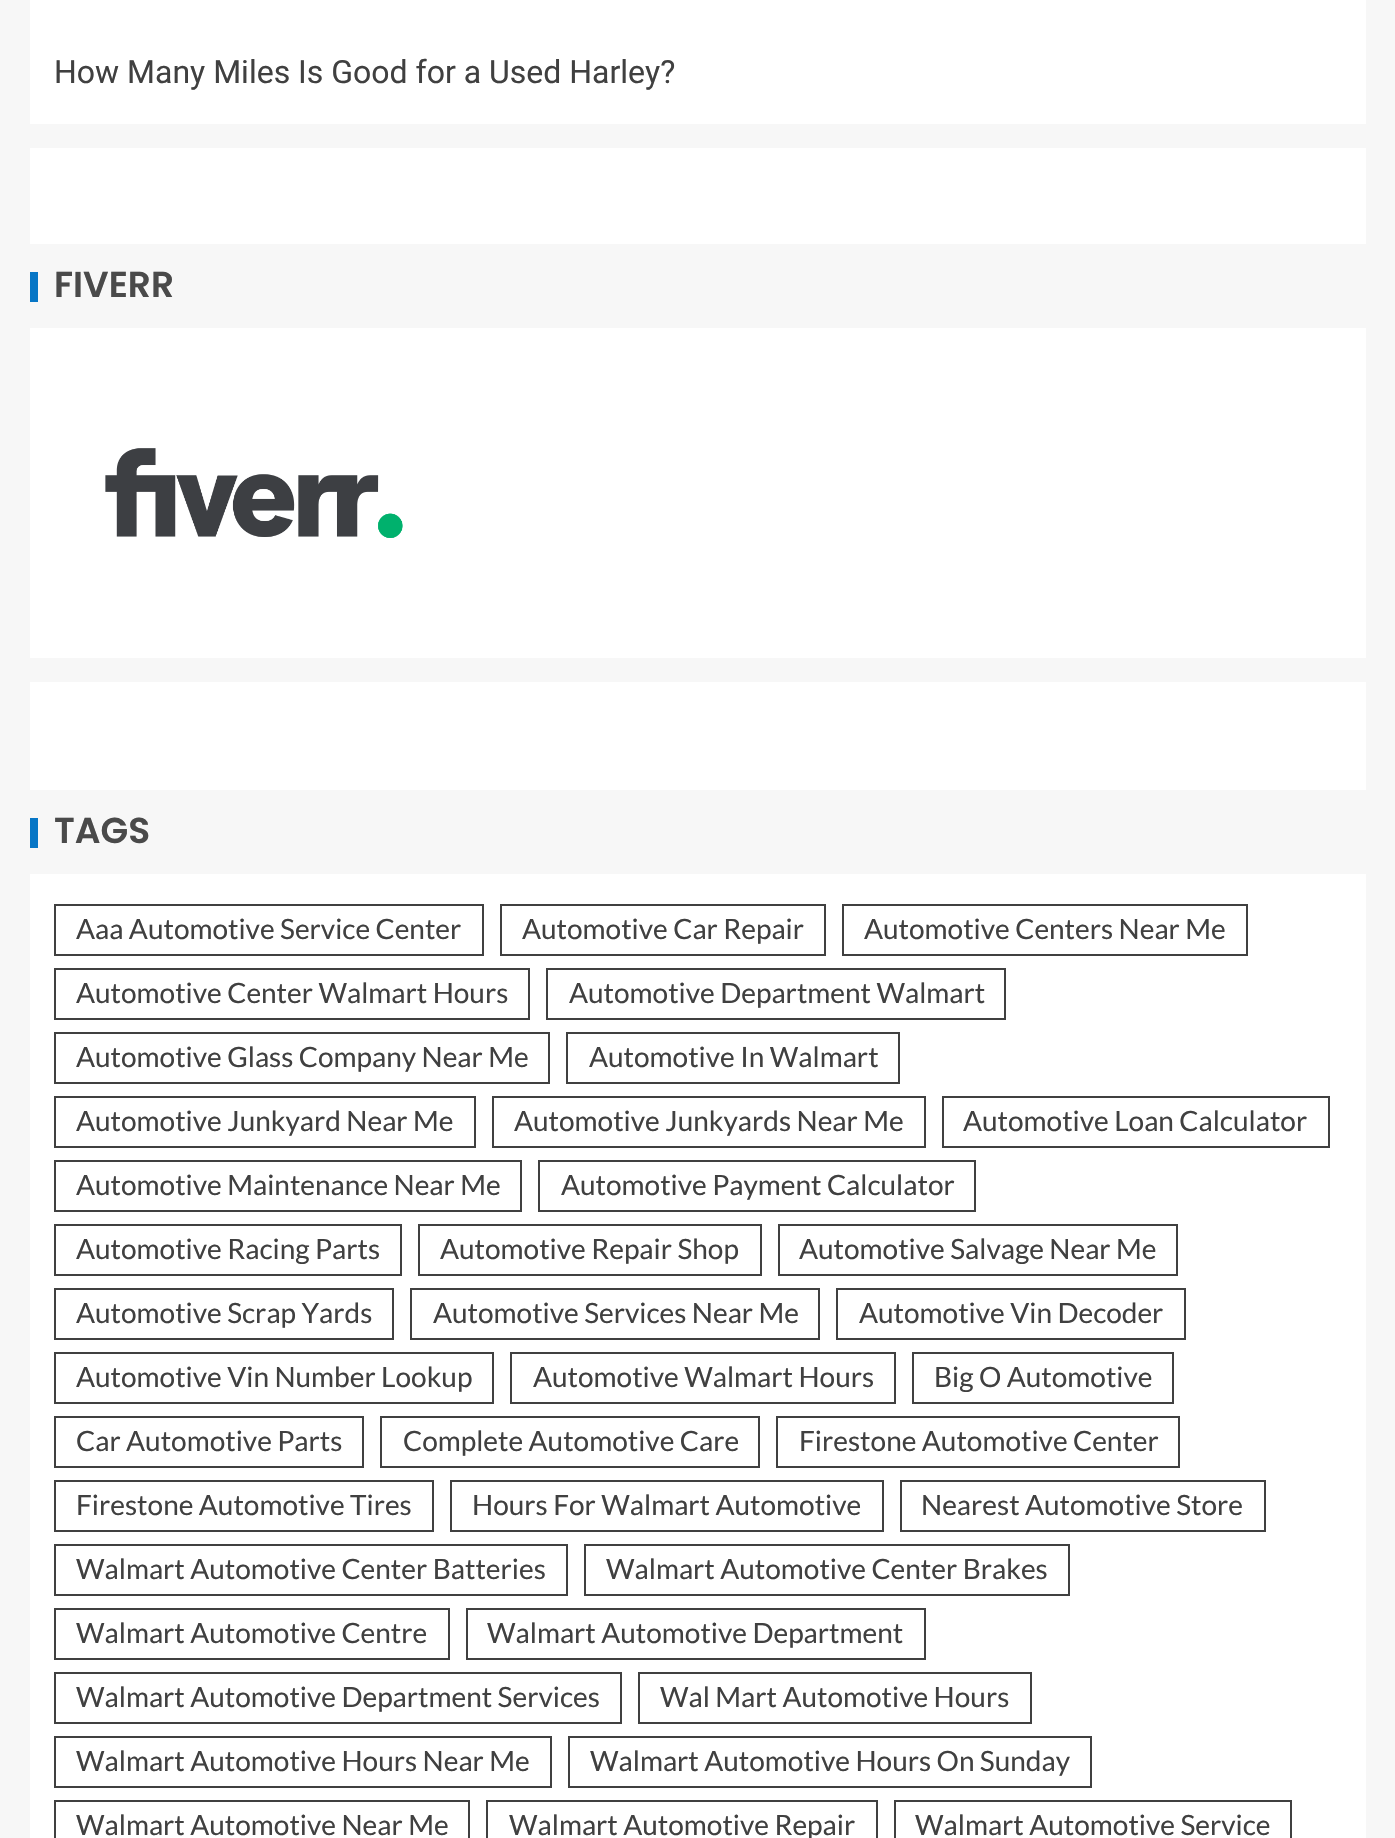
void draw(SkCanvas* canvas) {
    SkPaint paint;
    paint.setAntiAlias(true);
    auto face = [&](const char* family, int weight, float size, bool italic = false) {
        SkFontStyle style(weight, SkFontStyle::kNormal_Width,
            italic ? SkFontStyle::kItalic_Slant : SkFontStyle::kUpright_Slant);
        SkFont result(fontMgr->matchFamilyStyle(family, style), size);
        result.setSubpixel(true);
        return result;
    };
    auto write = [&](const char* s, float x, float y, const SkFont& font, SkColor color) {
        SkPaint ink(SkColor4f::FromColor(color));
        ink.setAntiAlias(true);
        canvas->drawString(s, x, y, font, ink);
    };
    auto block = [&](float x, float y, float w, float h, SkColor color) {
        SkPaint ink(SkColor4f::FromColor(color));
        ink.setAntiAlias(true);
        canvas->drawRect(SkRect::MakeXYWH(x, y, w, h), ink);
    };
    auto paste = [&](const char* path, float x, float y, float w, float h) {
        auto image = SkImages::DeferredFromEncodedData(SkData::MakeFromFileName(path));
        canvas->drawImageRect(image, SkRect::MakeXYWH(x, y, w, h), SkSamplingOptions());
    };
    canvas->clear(SkColorSetRGB(247, 247, 247));
    block(30, 0, 1336, 124, SK_ColorWHITE);
    auto kFont1 = face("Roboto", 400, 32);
    write("How Many Miles Is Good for a Used Harley?", 54, 83, kFont1, SkColorSetRGB(64, 64, 64));
    block(30, 148, 1336, 96, SK_ColorWHITE);
    block(30, 272, 8, 30, SkColorSetRGB(7, 118, 198));
    auto kFont2 = face("Poppins", 600, 36);
    write("FIVERR", 54, 297, kFont2, SkColorSetRGB(74, 74, 74));
    block(30, 328, 1336, 330, SK_ColorWHITE);
    paste("pic1.png", 105, 448, 298, 90);
    block(30, 682, 1336, 108, SK_ColorWHITE);
    block(30, 818, 8, 30, SkColorSetRGB(7, 118, 198));
    write("TAGS", 54, 843, kFont2, SkColorSetRGB(74, 74, 74));
    block(30, 874, 1336, 964, SK_ColorWHITE);
    paint.setStyle(SkPaint::kStroke_Style);
    paint.setStrokeWidth(2);
    paint.setColor(SkColorSetRGB(64, 64, 64));
    canvas->drawRect(SkRect::MakeXYWH(55, 905, 428, 50), paint);
    auto kFont3 = face("Lato", 400, 28);
    write("Aaa Automotive Service Center", 76, 939, kFont3, SkColorSetRGB(64, 64, 64));
    canvas->drawRect(SkRect::MakeXYWH(501, 905, 324, 50), paint);
    write("Automotive Car Repair", 522, 939, kFont3, SkColorSetRGB(64, 64, 64));
    canvas->drawRect(SkRect::MakeXYWH(843, 905, 404, 50), paint);
    write("Automotive Centers Near Me", 864, 939, kFont3, SkColorSetRGB(64, 64, 64));
    canvas->drawRect(SkRect::MakeXYWH(55, 969, 474, 50), paint);
    write("Automotive Center Walmart Hours", 76, 1003, kFont3, SkColorSetRGB(64, 64, 64));
    canvas->drawRect(SkRect::MakeXYWH(547, 969, 458, 50), paint);
    write("Automotive Department Walmart", 569, 1003, kFont3, SkColorSetRGB(64, 64, 64));
    canvas->drawRect(SkRect::MakeXYWH(55, 1033, 494, 50), paint);
    write("Automotive Glass Company Near Me", 76, 1067, kFont3, SkColorSetRGB(64, 64, 64));
    canvas->drawRect(SkRect::MakeXYWH(567, 1033, 332, 50), paint);
    write("Automotive In Walmart", 589, 1067, kFont3, SkColorSetRGB(64, 64, 64));
    canvas->drawRect(SkRect::MakeXYWH(55, 1097, 420, 50), paint);
    write("Automotive Junkyard Near Me", 76, 1131, kFont3, SkColorSetRGB(64, 64, 64));
    canvas->drawRect(SkRect::MakeXYWH(493, 1097, 432, 50), paint);
    write("Automotive Junkyards Near Me", 514, 1131, kFont3, SkColorSetRGB(64, 64, 64));
    canvas->drawRect(SkRect::MakeXYWH(943, 1097, 386, 50), paint);
    write("Automotive Loan Calculator", 963, 1131, kFont3, SkColorSetRGB(64, 64, 64));
    canvas->drawRect(SkRect::MakeXYWH(55, 1161, 466, 50), paint);
    write("Automotive Maintenance Near Me", 76, 1195, kFont3, SkColorSetRGB(64, 64, 64));
    canvas->drawRect(SkRect::MakeXYWH(539, 1161, 436, 50), paint);
    write("Automotive Payment Calculator", 561, 1195, kFont3, SkColorSetRGB(64, 64, 64));
    canvas->drawRect(SkRect::MakeXYWH(55, 1225, 346, 50), paint);
    write("Automotive Racing Parts", 76, 1259, kFont3, SkColorSetRGB(64, 64, 64));
    canvas->drawRect(SkRect::MakeXYWH(419, 1225, 342, 50), paint);
    write("Automotive Repair Shop", 440, 1259, kFont3, SkColorSetRGB(64, 64, 64));
    canvas->drawRect(SkRect::MakeXYWH(779, 1225, 398, 50), paint);
    write("Automotive Salvage Near Me", 799, 1259, kFont3, SkColorSetRGB(64, 64, 64));
    canvas->drawRect(SkRect::MakeXYWH(55, 1289, 338, 50), paint);
    write("Automotive Scrap Yards", 76, 1323, kFont3, SkColorSetRGB(64, 64, 64));
    canvas->drawRect(SkRect::MakeXYWH(411, 1289, 408, 50), paint);
    write("Automotive Services Near Me", 433, 1323, kFont3, SkColorSetRGB(64, 64, 64));
    canvas->drawRect(SkRect::MakeXYWH(837, 1289, 348, 50), paint);
    write("Automotive Vin Decoder", 859, 1323, kFont3, SkColorSetRGB(64, 64, 64));
    canvas->drawRect(SkRect::MakeXYWH(55, 1353, 438, 50), paint);
    write("Automotive Vin Number Lookup", 76, 1387, kFont3, SkColorSetRGB(64, 64, 64));
    canvas->drawRect(SkRect::MakeXYWH(511, 1353, 384, 50), paint);
    write("Automotive Walmart Hours", 533, 1387, kFont3, SkColorSetRGB(64, 64, 64));
    canvas->drawRect(SkRect::MakeXYWH(913, 1353, 260, 50), paint);
    write("Big O Automotive", 934, 1387, kFont3, SkColorSetRGB(64, 64, 64));
    canvas->drawRect(SkRect::MakeXYWH(55, 1417, 308, 50), paint);
    write("Car Automotive Parts", 76, 1451, kFont3, SkColorSetRGB(64, 64, 64));
    canvas->drawRect(SkRect::MakeXYWH(381, 1417, 378, 50), paint);
    write("Complete Automotive Care", 403, 1451, kFont3, SkColorSetRGB(64, 64, 64));
    canvas->drawRect(SkRect::MakeXYWH(777, 1417, 402, 50), paint);
    write("Firestone Automotive Center", 799, 1451, kFont3, SkColorSetRGB(64, 64, 64));
    canvas->drawRect(SkRect::MakeXYWH(55, 1481, 378, 50), paint);
    write("Firestone Automotive Tires", 76, 1515, kFont3, SkColorSetRGB(64, 64, 64));
    canvas->drawRect(SkRect::MakeXYWH(451, 1481, 432, 50), paint);
    write("Hours For Walmart Automotive", 472, 1515, kFont3, SkColorSetRGB(64, 64, 64));
    canvas->drawRect(SkRect::MakeXYWH(901, 1481, 364, 50), paint);
    write("Nearest Automotive Store", 921, 1515, kFont3, SkColorSetRGB(64, 64, 64));
    canvas->drawRect(SkRect::MakeXYWH(55, 1545, 512, 50), paint);
    write("Walmart Automotive Center Batteries", 76, 1579, kFont3, SkColorSetRGB(64, 64, 64));
    canvas->drawRect(SkRect::MakeXYWH(585, 1545, 484, 50), paint);
    write("Walmart Automotive Center Brakes", 606, 1579, kFont3, SkColorSetRGB(64, 64, 64));
    canvas->drawRect(SkRect::MakeXYWH(55, 1609, 394, 50), paint);
    write("Walmart Automotive Centre", 76, 1643, kFont3, SkColorSetRGB(64, 64, 64));
    canvas->drawRect(SkRect::MakeXYWH(467, 1609, 458, 50), paint);
    write("Walmart Automotive Department", 487, 1643, kFont3, SkColorSetRGB(64, 64, 64));
    canvas->drawRect(SkRect::MakeXYWH(55, 1673, 566, 50), paint);
    write("Walmart Automotive Department Services", 76, 1707, kFont3, SkColorSetRGB(64, 64, 64));
    canvas->drawRect(SkRect::MakeXYWH(639, 1673, 392, 50), paint);
    write("Wal Mart Automotive Hours", 660, 1707, kFont3, SkColorSetRGB(64, 64, 64));
    canvas->drawRect(SkRect::MakeXYWH(55, 1737, 496, 50), paint);
    write("Walmart Automotive Hours Near Me", 76, 1771, kFont3, SkColorSetRGB(64, 64, 64));
    canvas->drawRect(SkRect::MakeXYWH(569, 1737, 522, 50), paint);
    write("Walmart Automotive Hours On Sunday", 590, 1771, kFont3, SkColorSetRGB(64, 64, 64));
    canvas->drawRect(SkRect::MakeXYWH(55, 1801, 414, 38), paint);
    write("Walmart Automotive Near Me", 76, 1835, kFont3, SkColorSetRGB(64, 64, 64));
    canvas->drawRect(SkRect::MakeXYWH(487, 1801, 390, 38), paint);
    write("Walmart Automotive Repair", 509, 1835, kFont3, SkColorSetRGB(64, 64, 64));
    canvas->drawRect(SkRect::MakeXYWH(895, 1801, 396, 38), paint);
    write("Walmart Automotive Service", 915, 1835, kFont3, SkColorSetRGB(64, 64, 64));
}
